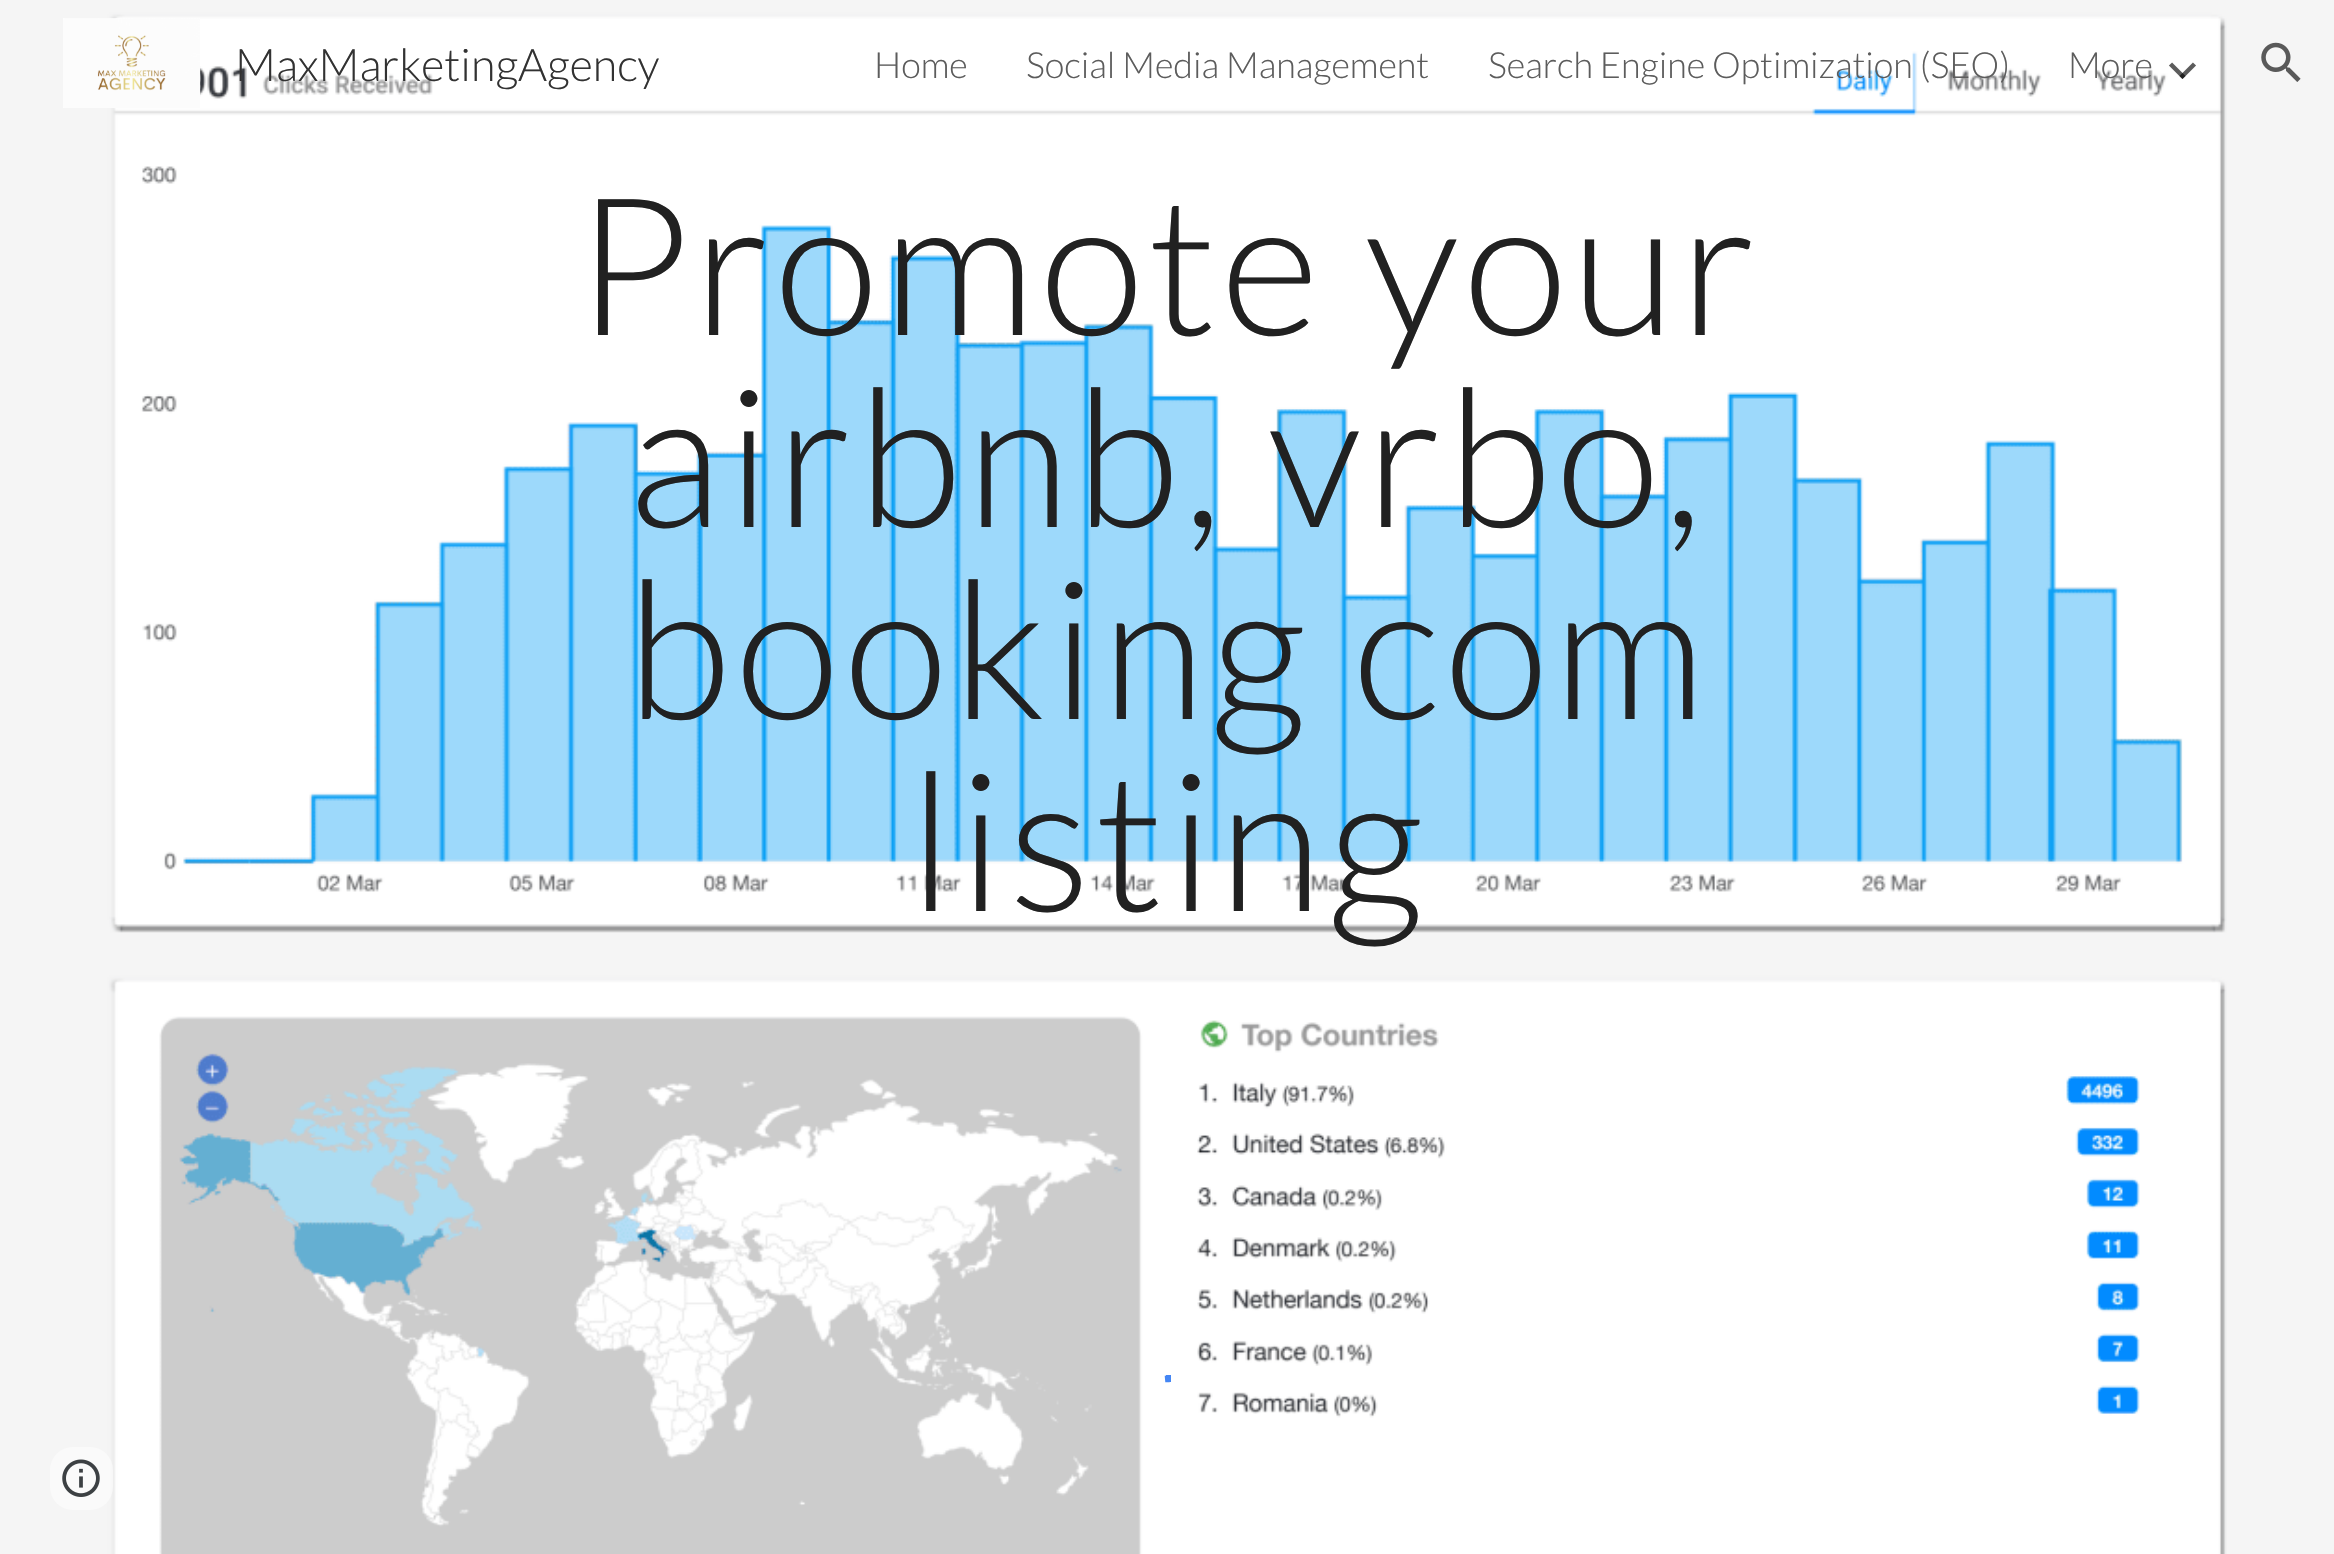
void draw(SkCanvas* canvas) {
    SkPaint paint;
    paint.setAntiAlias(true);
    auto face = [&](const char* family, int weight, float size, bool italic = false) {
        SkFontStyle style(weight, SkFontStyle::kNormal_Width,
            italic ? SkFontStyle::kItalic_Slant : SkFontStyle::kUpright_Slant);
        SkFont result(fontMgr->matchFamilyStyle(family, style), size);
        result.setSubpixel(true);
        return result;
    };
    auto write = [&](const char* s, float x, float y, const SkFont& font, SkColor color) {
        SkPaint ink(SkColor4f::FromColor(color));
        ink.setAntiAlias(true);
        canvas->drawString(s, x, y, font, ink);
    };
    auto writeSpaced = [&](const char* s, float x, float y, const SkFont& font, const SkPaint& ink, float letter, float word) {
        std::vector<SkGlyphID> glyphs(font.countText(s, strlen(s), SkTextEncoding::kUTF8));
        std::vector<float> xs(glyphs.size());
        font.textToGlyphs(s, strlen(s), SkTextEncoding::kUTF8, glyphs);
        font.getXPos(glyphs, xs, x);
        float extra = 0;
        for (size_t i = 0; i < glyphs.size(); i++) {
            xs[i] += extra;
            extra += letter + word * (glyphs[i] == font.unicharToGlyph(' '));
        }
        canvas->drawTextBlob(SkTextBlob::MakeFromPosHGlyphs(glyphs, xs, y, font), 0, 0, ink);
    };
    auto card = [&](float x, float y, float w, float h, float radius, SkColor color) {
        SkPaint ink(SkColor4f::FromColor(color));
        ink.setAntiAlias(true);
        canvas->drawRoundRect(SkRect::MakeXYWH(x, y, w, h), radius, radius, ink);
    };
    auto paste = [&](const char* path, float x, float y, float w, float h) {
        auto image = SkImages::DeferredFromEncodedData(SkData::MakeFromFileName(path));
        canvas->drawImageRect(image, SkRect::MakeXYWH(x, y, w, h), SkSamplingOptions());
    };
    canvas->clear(SK_ColorWHITE);
    paste("pic3.png", 0, 0, 2334, 1554);
    paste("pic1.png", 63, 18, 138, 90);
    auto kFont1 = face("Lato", 300, 45);
    write("MaxMarketingAgency", 235, 81, kFont1, SkColorSetRGB(50, 50, 50));
    auto kFont2 = face("Lato", 300, 36);
    write("Home", 874, 78, kFont2, SkColorSetRGB(92, 92, 92));
    write("Social Media Management", 1026, 78, kFont2, SkColorSetRGB(92, 92, 92));
    write("Search Engine Optimization (SEO)", 1488, 78, kFont2, SkColorSetRGB(92, 92, 92));
    write("More", 2068, 78, kFont2, SkColorSetRGB(92, 92, 92));
    paint.setStyle(SkPaint::kStroke_Style);
    paint.setStrokeWidth(4.5f);
    paint.setColor(SkColorSetRGB(92, 92, 92));
    canvas->drawPath(SkPathBuilder().moveTo(2170.5f, 64).lineTo(2184, 77.5f).detach(), paint);
    paint.setColor(SkColorSetARGB(163, 0, 0, 0));
    canvas->drawPath(SkPathBuilder().moveTo(2181, 77.5f).lineTo(2194.5f, 64).detach(), paint);
    paste("pic2.png", 2261, 42, 40, 40);
    auto kFont3 = face("Lato", 300, 192);
    paint.setStyle(SkPaint::kFill_Style);
    paint.setColor(SkColorSetRGB(33, 33, 33));
    writeSpaced("Promote your", 575, 335, kFont3, paint, 4.5f, 0);
    writeSpaced("airbnb, vrbo,", 628, 527, kFont3, paint, 4.5f, 0);
    writeSpaced("booking com", 626, 719, kFont3, paint, 4.5f, 0);
    writeSpaced("listing", 908, 911, kFont3, paint, 4.5f, 0);
    canvas->save();
    canvas->clipRect(SkRect::MakeXYWH(1136, 1375, 32, 63));
    paint.setStyle(SkPaint::kStroke_Style);
    paint.setStrokeWidth(6.7f);
    paint.setColor(SkColorSetRGB(68, 134, 244));
    canvas->drawPath(SkPathBuilder().moveTo(1165, 1379).cubicTo(1170.5f, 1378.5f, 1176.5f, 1379.5f, 1181, 1382.5f).cubicTo(1205.5f, 1395.5f, 1197.5f, 1432.5f, 1170, 1435).detach(), paint);
    canvas->restore();
    canvas->save();
    canvas->clipRect(SkRect::MakeXYWH(1166, 1375, 5, 63));
    paint.setStrokeWidth(6.8f);
    canvas->drawPath(SkPathBuilder().moveTo(1148, 1426).cubicTo(1141.5f, 1419.5f, 1138.5f, 1410, 1140, 1400.5f).cubicTo(1146.5f, 1368, 1196, 1372.5f, 1196, 1406).cubicTo(1196, 1413.5f, 1193, 1421, 1187.5f, 1426).detach(), paint);
    canvas->restore();
    canvas->save();
    canvas->clipRect(SkRect::MakeXYWH(1168, 1375, 31, 63));
    paint.setStrokeWidth(6.7f);
    canvas->drawPath(SkPathBuilder().moveTo(1165, 1435).cubicTo(1138, 1432.5f, 1130, 1395.5f, 1154, 1382.5f).cubicTo(1159, 1379.5f, 1164.5f, 1378.5f, 1170, 1379).detach(), paint);
    canvas->restore();
    card(50, 1447, 63, 63, 23, SkColorSetARGB(128, 255, 255, 255));
    paste("pic4.png", 62, 1459, 38, 38);
}
